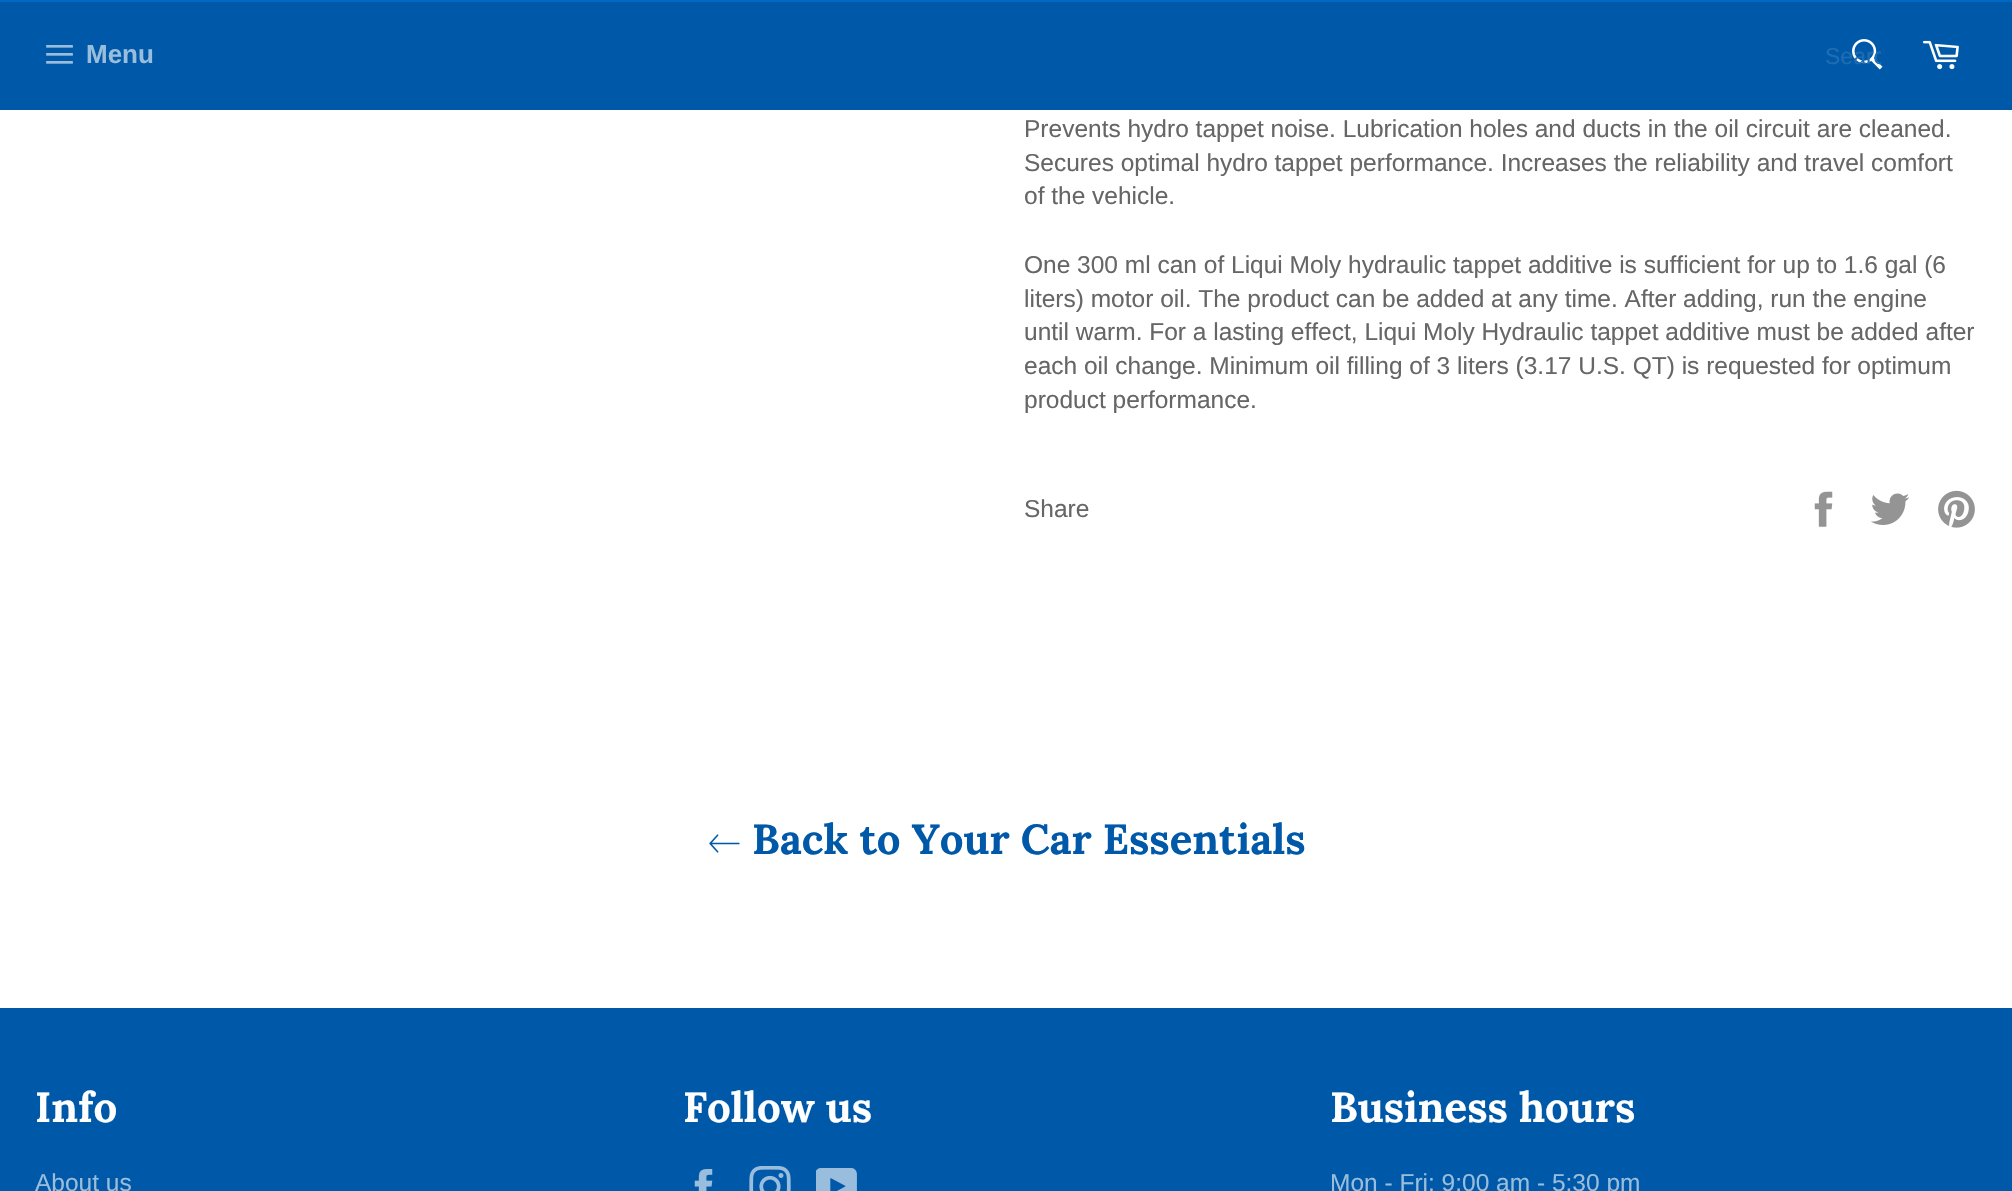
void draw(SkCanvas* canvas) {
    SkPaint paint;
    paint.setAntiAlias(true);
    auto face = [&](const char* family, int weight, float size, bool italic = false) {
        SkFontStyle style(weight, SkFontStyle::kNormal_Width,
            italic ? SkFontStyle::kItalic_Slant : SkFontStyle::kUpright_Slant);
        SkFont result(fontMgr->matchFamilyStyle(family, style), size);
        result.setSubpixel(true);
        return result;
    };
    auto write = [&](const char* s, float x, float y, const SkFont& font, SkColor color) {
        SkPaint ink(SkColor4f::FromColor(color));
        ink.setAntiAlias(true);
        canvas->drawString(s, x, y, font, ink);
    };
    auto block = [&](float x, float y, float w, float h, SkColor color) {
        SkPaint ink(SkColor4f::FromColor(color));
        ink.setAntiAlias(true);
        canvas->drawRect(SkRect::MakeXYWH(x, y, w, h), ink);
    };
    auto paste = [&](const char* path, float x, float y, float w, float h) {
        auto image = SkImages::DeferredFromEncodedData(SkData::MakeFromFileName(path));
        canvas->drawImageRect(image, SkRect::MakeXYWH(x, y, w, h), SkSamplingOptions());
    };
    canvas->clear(SK_ColorWHITE);
    block(0, 2, 2012, 108, SkColorSetRGB(0, 89, 168));
    block(0, 0, 2012, 2, SkColorSetRGB(0, 103, 194));
    paste("pic1.png", 46, 45, 27, 19);
    auto kFont1 = face("Arimo", 700, 26);
    write("Menu", 86, 63, kFont1, SkColorSetRGB(153, 189, 220));
    paste("pic2.png", 1852, 39, 31, 31);
    canvas->save();
    canvas->clipRect(SkRect::MakeXYWH(1825, 44, 56, 26));
    auto kFont2 = face("Arimo", 400, 23);
    write("Searc", 1825, 64, kFont2, SkColorSetRGB(30, 109, 178));
    canvas->restore();
    paste("pic3.png", 1922, 40, 37, 30);
    auto kFont3 = face("Arimo", 400, 24.5f);
    write("Prevents hydro tappet noise. Lubrication holes and ducts in the oil circuit are cleaned.", 1024, 137, kFont3, SkColorSetRGB(102, 102, 102));
    write("Secures optimal hydro tappet performance. Increases the reliability and travel comfort", 1024, 171, kFont3, SkColorSetRGB(102, 102, 102));
    write("of the vehicle.", 1024, 204, kFont3, SkColorSetRGB(102, 102, 102));
    write("One 300 ml can of Liqui Moly hydraulic tappet additive is sufficient for up to 1.6 gal (6", 1024, 273, kFont3, SkColorSetRGB(102, 102, 102));
    write("liters) motor oil. The product can be added at any time. After adding, run the engine", 1024, 307, kFont3, SkColorSetRGB(102, 102, 102));
    write("until warm. For a lasting effect, Liqui Moly Hydraulic tappet additive must be added after", 1024, 340, kFont3, SkColorSetRGB(102, 102, 102));
    write("each oil change. Minimum oil filling of 3 liters (3.17 U.S. QT) is requested for optimum", 1024, 374, kFont3, SkColorSetRGB(102, 102, 102));
    write("product performance.", 1024, 408, kFont3, SkColorSetRGB(102, 102, 102));
    write("Share", 1024, 517, kFont3, SkColorSetRGB(102, 102, 102));
    paste("pic4.png", 1814, 491, 19, 36);
    paste("pic5.png", 1871, 493, 39, 32);
    paste("pic6.png", 1938, 490, 37, 38);
    paste("pic7.png", 709, 834, 31, 19);
    auto kFont4 = face("Lora", 700, 42);
    write("Back to Your Car Essentials", 752, 854, kFont4, SkColorSetRGB(0, 89, 168));
    block(0, 1008, 2012, 183, SkColorSetRGB(0, 89, 168));
    write("Info", 35, 1122, kFont4, SK_ColorWHITE);
    write("About us", 35, 1191, kFont3, SkColorSetRGB(153, 189, 220));
    write("Follow us", 683, 1122, kFont4, SK_ColorWHITE);
    paste("pic8.png", 694, 1169, 19, 22);
    paste("pic9.png", 749, 1166, 42, 25);
    paste("pic10.png", 816, 1168, 41, 23);
    write("Business hours", 1330, 1122, kFont4, SK_ColorWHITE);
    write("Mon - Fri: 9:00 am - 5:30 pm", 1330, 1191, kFont3, SkColorSetRGB(153, 189, 220));
}
